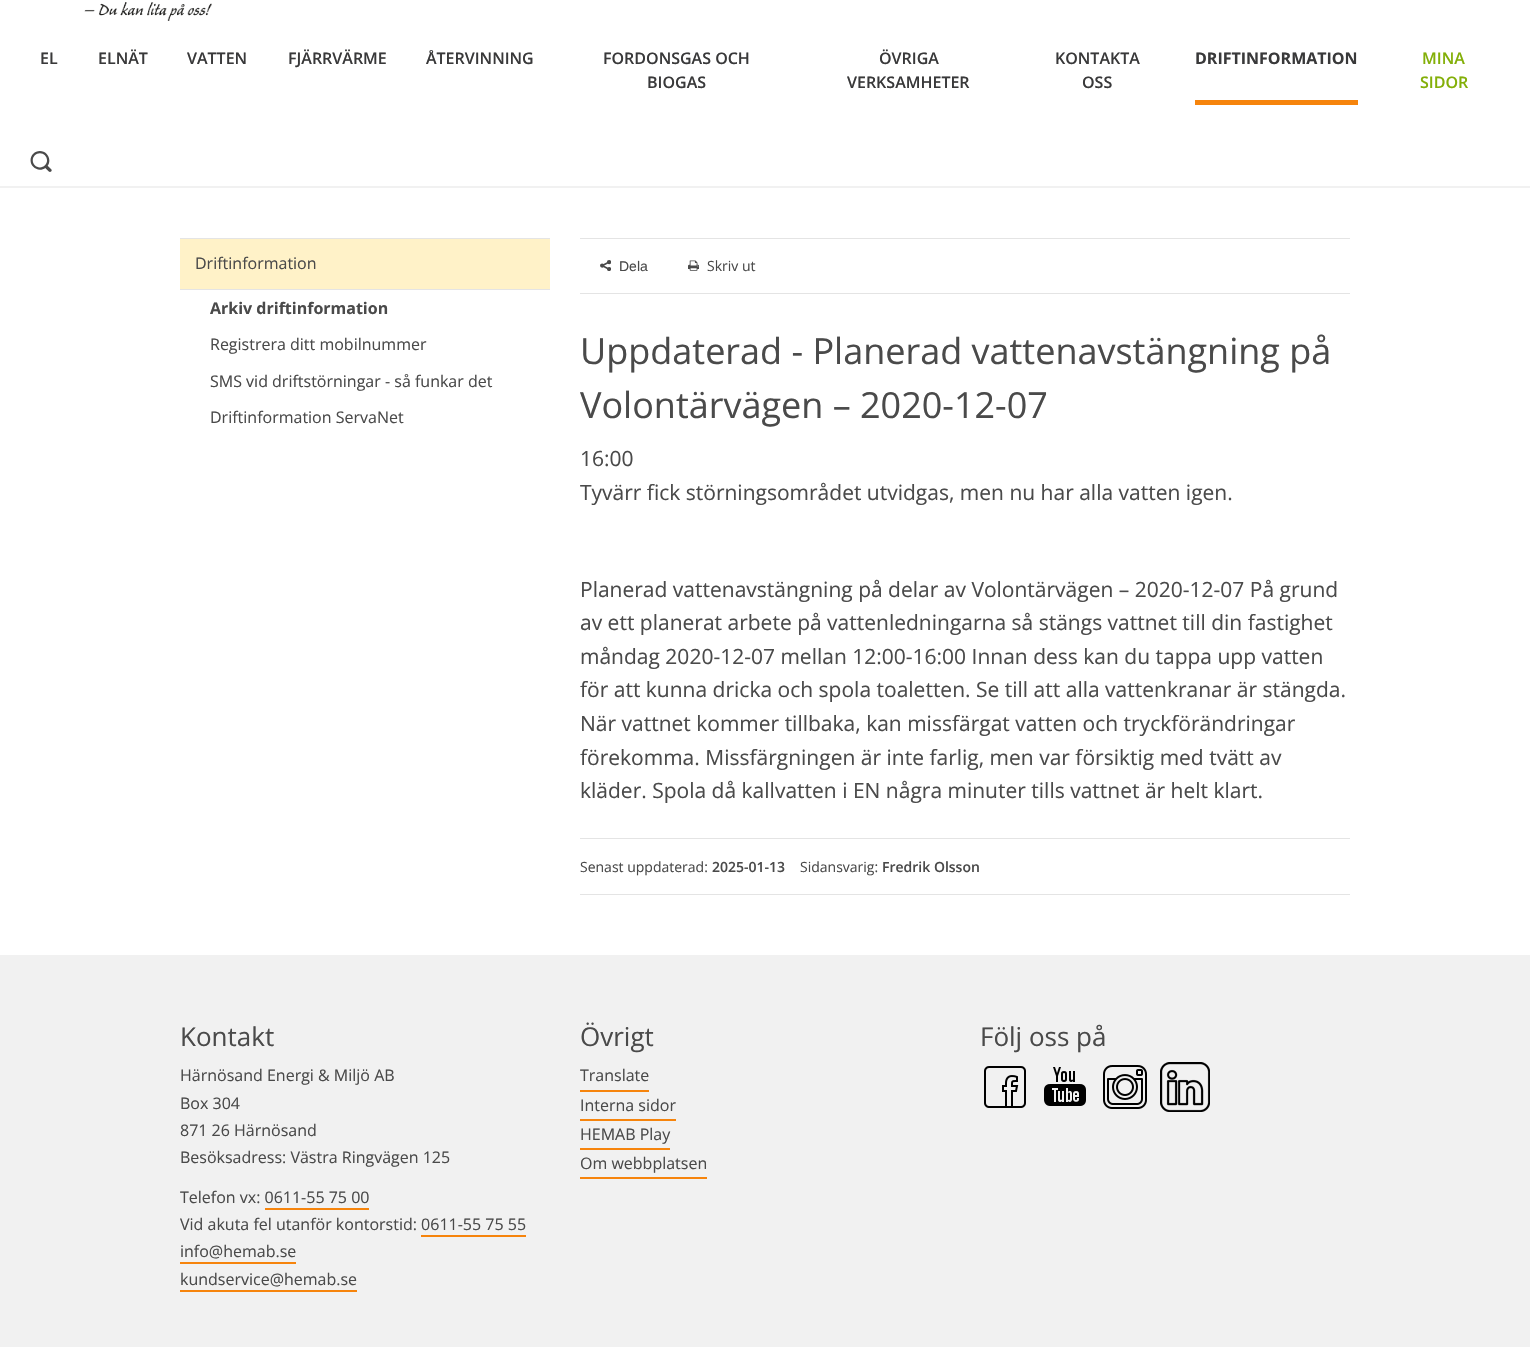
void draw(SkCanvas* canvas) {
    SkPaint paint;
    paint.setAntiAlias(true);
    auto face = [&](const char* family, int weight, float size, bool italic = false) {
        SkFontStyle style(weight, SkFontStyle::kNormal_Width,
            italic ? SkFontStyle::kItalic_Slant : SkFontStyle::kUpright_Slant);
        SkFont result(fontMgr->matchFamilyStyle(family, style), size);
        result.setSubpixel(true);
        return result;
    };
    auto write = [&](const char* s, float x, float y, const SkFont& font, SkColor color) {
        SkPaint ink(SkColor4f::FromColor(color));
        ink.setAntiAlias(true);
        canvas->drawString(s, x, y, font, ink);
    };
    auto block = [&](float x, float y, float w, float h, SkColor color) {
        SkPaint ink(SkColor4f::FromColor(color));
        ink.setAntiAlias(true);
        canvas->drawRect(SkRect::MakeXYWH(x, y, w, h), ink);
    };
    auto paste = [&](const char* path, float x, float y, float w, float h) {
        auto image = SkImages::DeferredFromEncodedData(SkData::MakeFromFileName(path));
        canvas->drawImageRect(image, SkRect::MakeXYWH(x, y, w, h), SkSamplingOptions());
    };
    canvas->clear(SK_ColorWHITE);
    block(0, 186, 1530, 2, SkColorSetRGB(241, 241, 241));
    paste("pic1.png", 84, 2, 128, 19);
    auto kFont1 = face("Open Sans", 600, 16);
    write("EL", 40, 64, kFont1, SkColorSetRGB(57, 57, 58));
    write("ELNÄT", 98, 64, kFont1, SkColorSetRGB(57, 57, 58));
    write("VATTEN", 187, 64, kFont1, SkColorSetRGB(57, 57, 58));
    write("FJÄRRVÄRME", 288, 64, kFont1, SkColorSetRGB(57, 57, 58));
    write("ÅTERVINNING", 426, 64, kFont1, SkColorSetRGB(57, 57, 58));
    write("FORDONSGAS OCH", 603, 64, kFont1, SkColorSetRGB(57, 57, 58));
    write("BIOGAS", 647, 88, kFont1, SkColorSetRGB(57, 57, 58));
    write("ÖVRIGA", 879, 64, kFont1, SkColorSetRGB(57, 57, 58));
    write("VERKSAMHETER", 847, 88, kFont1, SkColorSetRGB(57, 57, 58));
    write("KONTAKTA", 1055, 64, kFont1, SkColorSetRGB(57, 57, 58));
    write("OSS", 1082, 88, kFont1, SkColorSetRGB(57, 57, 58));
    block(1195, 100, 163, 5, SkColorSetRGB(246, 132, 12));
    auto kFont2 = face("Open Sans", 700, 16);
    write("DRIFTINFORMATION", 1195, 64, kFont2, SkColorSetRGB(57, 57, 58));
    write("MINA", 1422, 64, kFont1, SkColorSetRGB(131, 175, 8));
    write("SIDOR", 1420, 88, kFont1, SkColorSetRGB(131, 175, 8));
    paste("pic2.png", 30, 151, 22, 21);
    block(180, 239, 370, 50, SkColorSetRGB(255, 242, 200));
    block(180, 238, 370, 1, SkColorSetRGB(228, 228, 228));
    block(180, 289, 370, 1, SkColorSetRGB(228, 228, 228));
    auto kFont3 = face("Open Sans", 400, 16);
    write("Driftinformation", 195, 269, kFont3, SkColorSetRGB(74, 74, 74));
    write("Arkiv driftinformation", 210, 314, kFont2, SkColorSetRGB(74, 74, 74));
    write("Registrera ditt mobilnummer", 210, 350, kFont3, SkColorSetRGB(74, 74, 74));
    write("SMS vid driftstörningar - så funkar det", 210, 387, kFont3, SkColorSetRGB(74, 74, 74));
    write("Driftinformation ServaNet", 210, 423, kFont3, SkColorSetRGB(74, 74, 74));
    block(580, 238, 770, 1, SkColorSetRGB(228, 228, 228));
    block(580, 293, 770, 1, SkColorSetRGB(228, 228, 228));
    paste("pic3.png", 600, 260, 11, 11);
    auto kFont4 = face("Liberation Sans", 400, 14);
    write("Dela", 619, 271, kFont4, SkColorSetRGB(74, 74, 74));
    paste("pic4.png", 688, 260, 11, 11);
    auto kFont5 = face("Open Sans", 400, 14);
    write("Skriv ut", 707, 271, kFont5, SkColorSetRGB(74, 74, 74));
    auto kFont6 = face("Open Sans", 400, 36);
    write("Uppdaterad - Planerad vattenavstängning på", 580, 364, kFont6, SkColorSetRGB(74, 74, 74));
    write("Volontärvägen – 2020-12-07", 580, 418, kFont6, SkColorSetRGB(74, 74, 74));
    auto kFont7 = face("Open Sans", 400, 21);
    write("16:00", 580, 466, kFont7, SkColorSetRGB(74, 74, 74));
    write("Tyvärr fick störningsområdet utvidgas, men nu har alla vatten igen.", 580, 500, kFont7, SkColorSetRGB(74, 74, 74));
    write("Planerad vattenavstängning på delar av Volontärvägen – 2020-12-07 På grund", 580, 597, kFont7, SkColorSetRGB(74, 74, 74));
    write("av ett planerat arbete på vattenledningarna så stängs vattnet till din fastighet", 580, 630, kFont7, SkColorSetRGB(74, 74, 74));
    write("måndag 2020-12-07 mellan 12:00-16:00 Innan dess kan du tappa upp vatten", 580, 664, kFont7, SkColorSetRGB(74, 74, 74));
    write("för att kunna dricka och spola toaletten. Se till att alla vattenkranar är stängda.", 580, 697, kFont7, SkColorSetRGB(74, 74, 74));
    write("När vattnet kommer tillbaka, kan missfärgat vatten och tryckförändringar", 580, 731, kFont7, SkColorSetRGB(74, 74, 74));
    write("förekomma. Missfärgningen är inte farlig, men var försiktig med tvätt av", 580, 765, kFont7, SkColorSetRGB(74, 74, 74));
    write("kläder. Spola då kallvatten i EN några minuter tills vattnet är helt klart.", 580, 798, kFont7, SkColorSetRGB(74, 74, 74));
    block(580, 838, 770, 1, SkColorSetRGB(228, 228, 228));
    block(580, 894, 770, 1, SkColorSetRGB(228, 228, 228));
    write("Senast uppdaterad:", 580, 872, kFont5, SkColorSetRGB(74, 74, 74));
    auto kFont8 = face("Open Sans", 600, 14);
    write("2025-01-13", 712, 872, kFont8, SkColorSetRGB(74, 74, 74));
    write("Sidansvarig:", 800, 872, kFont5, SkColorSetRGB(74, 74, 74));
    write("Fredrik Olsson", 882, 872, kFont8, SkColorSetRGB(74, 74, 74));
    block(0, 955, 1530, 392, SkColorSetRGB(241, 241, 241));
    auto kFont9 = face("Open Sans", 400, 26);
    write("Kontakt", 180, 1046, kFont9, SkColorSetRGB(74, 74, 74));
    write("Härnösand Energi & Miljö AB", 180, 1081, kFont3, SkColorSetRGB(74, 74, 74));
    write("Box 304", 180, 1109, kFont3, SkColorSetRGB(74, 74, 74));
    write("871 26 Härnösand", 180, 1136, kFont3, SkColorSetRGB(74, 74, 74));
    write("Besöksadress: Västra Ringvägen 125", 180, 1163, kFont3, SkColorSetRGB(74, 74, 74));
    write("Telefon vx: 0611-55 75 00", 180, 1203, kFont3, SkColorSetRGB(74, 74, 74));
    block(265, 1208, 104, 2, SkColorSetRGB(246, 132, 12));
    write("Vid akuta fel utanför kontorstid: 0611-55 75 55", 180, 1230, kFont3, SkColorSetRGB(74, 74, 74));
    block(421, 1235, 105, 2, SkColorSetRGB(246, 132, 12));
    write("info@hemab.se", 180, 1257, kFont3, SkColorSetRGB(74, 74, 74));
    block(180, 1262, 116, 2, SkColorSetRGB(246, 132, 12));
    write("kundservice@hemab.se", 180, 1285, kFont3, SkColorSetRGB(74, 74, 74));
    block(180, 1290, 177, 2, SkColorSetRGB(246, 132, 12));
    write("Övrigt", 580, 1046, kFont9, SkColorSetRGB(74, 74, 74));
    block(580, 1090, 69, 2, SkColorSetRGB(246, 132, 12));
    write("Translate", 580, 1081, kFont3, SkColorSetRGB(74, 74, 74));
    block(580, 1119, 96, 2, SkColorSetRGB(246, 132, 12));
    write("Interna sidor", 580, 1111, kFont3, SkColorSetRGB(74, 74, 74));
    block(580, 1148, 90, 2, SkColorSetRGB(246, 132, 12));
    write("HEMAB Play", 580, 1140, kFont3, SkColorSetRGB(74, 74, 74));
    block(580, 1177, 127, 2, SkColorSetRGB(246, 132, 12));
    write("Om webbplatsen", 580, 1169, kFont3, SkColorSetRGB(74, 74, 74));
    write("Följ oss på", 980, 1046, kFont9, SkColorSetRGB(74, 74, 74));
    paste("pic5.png", 984, 1066, 42, 42);
    paste("pic6.png", 1044, 1067, 42, 39);
    paste("pic7.png", 1103, 1065, 44, 44);
    paste("pic8.png", 1160, 1062, 50, 50);
}
